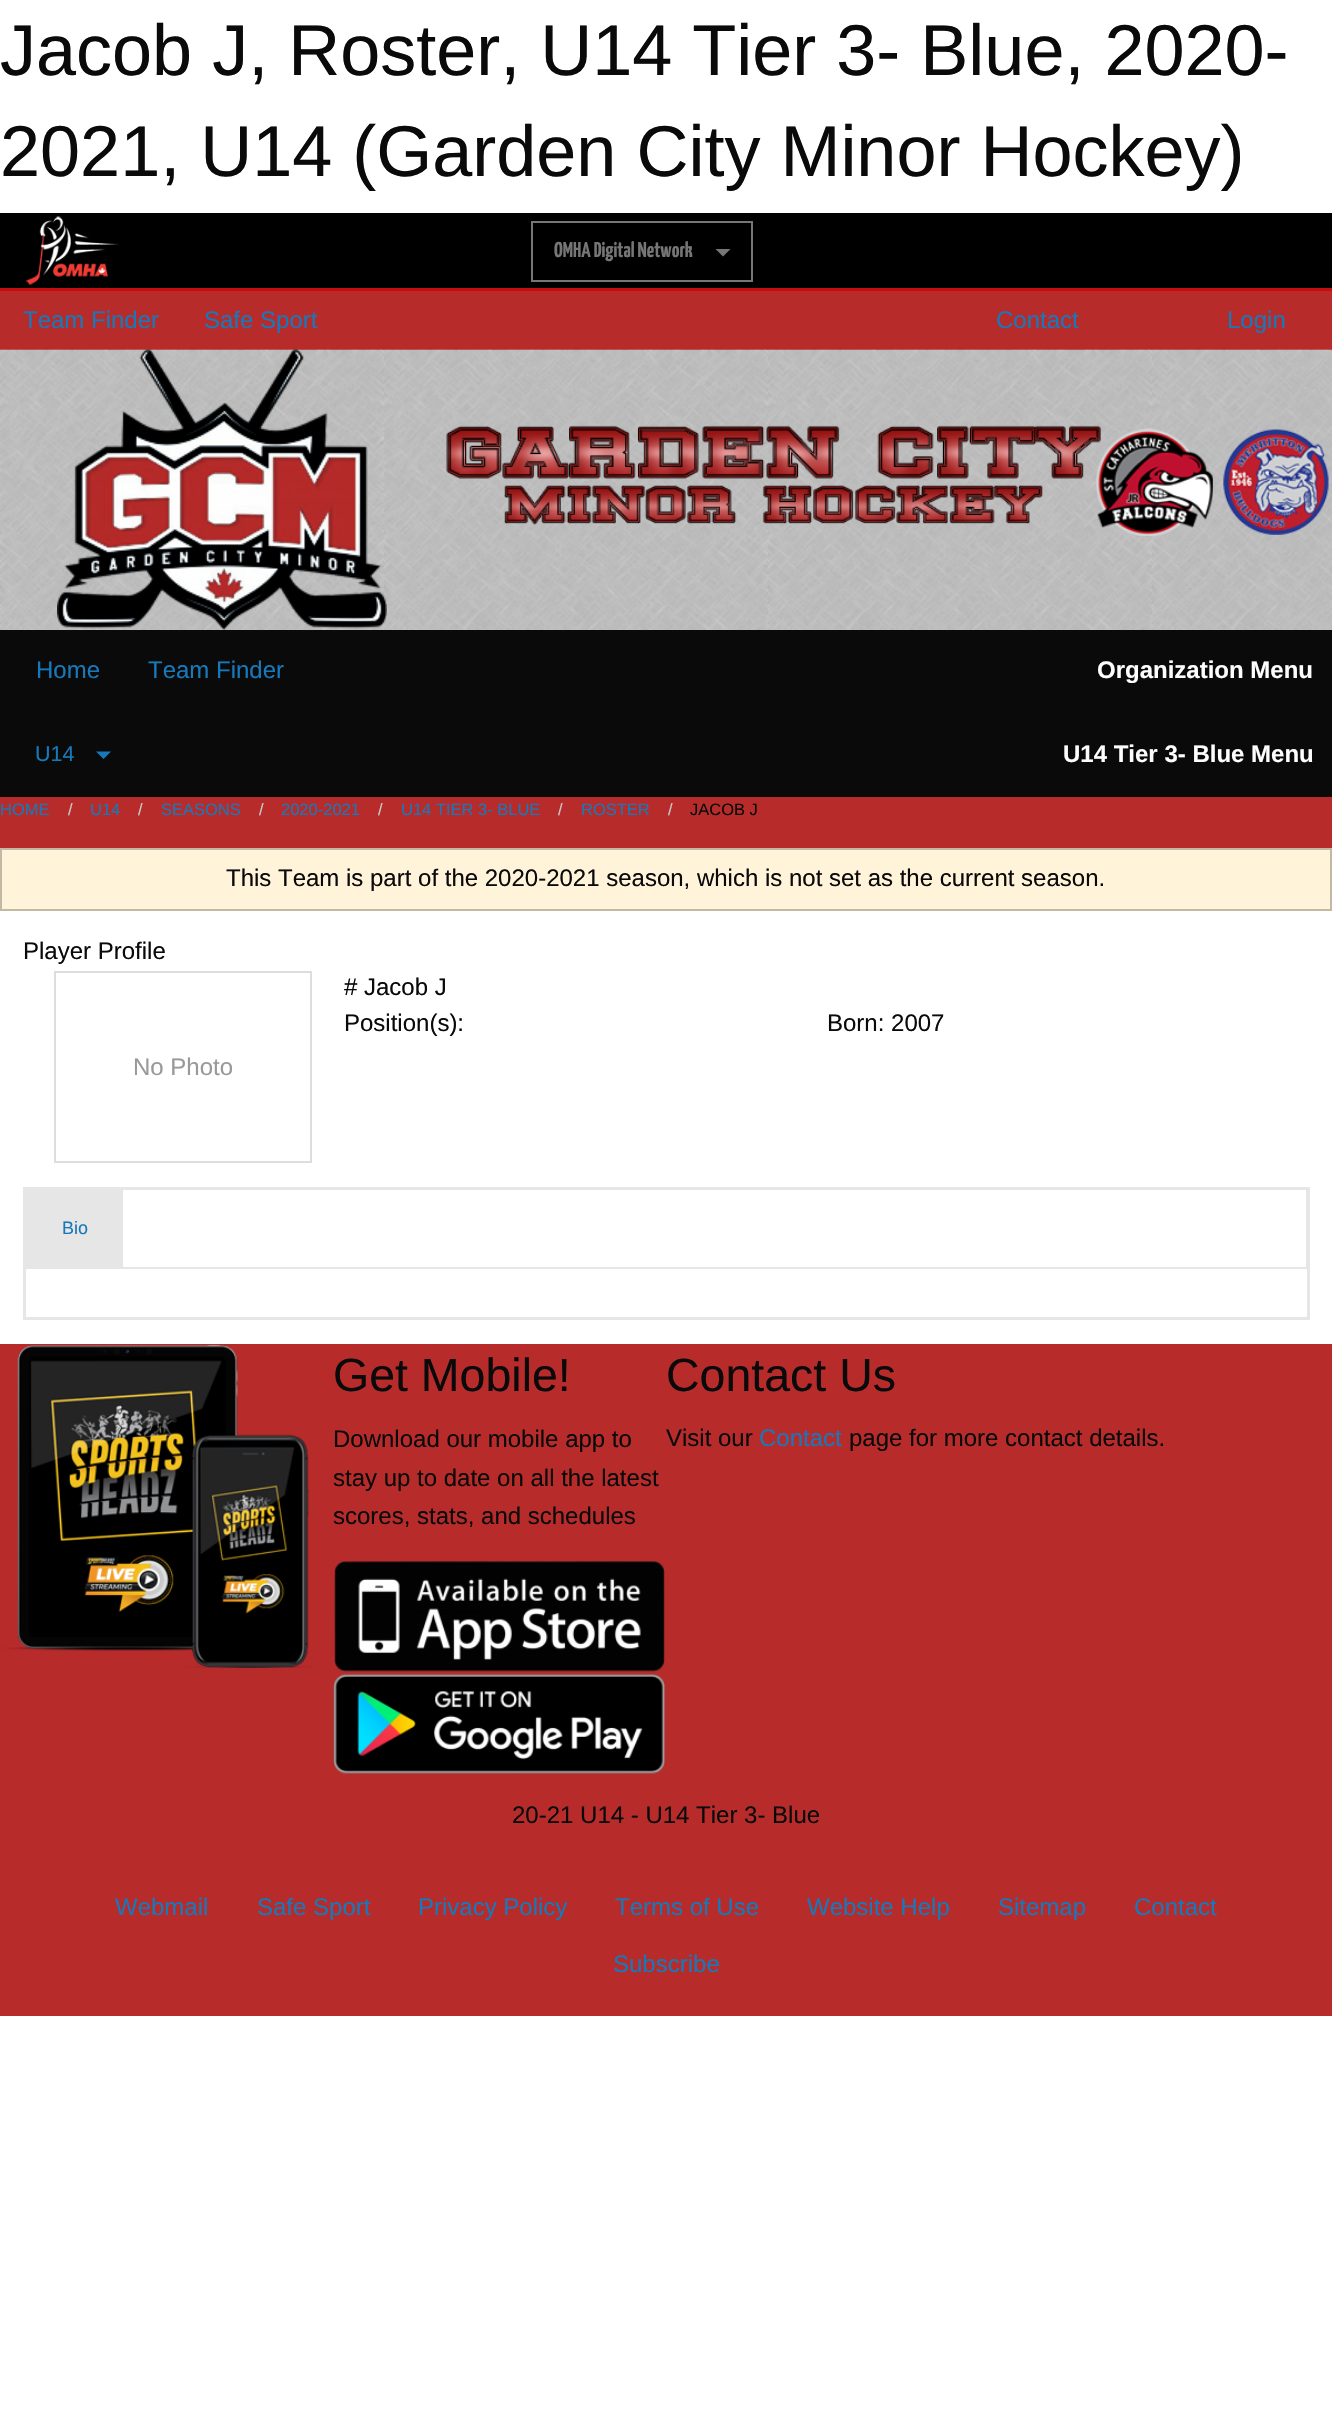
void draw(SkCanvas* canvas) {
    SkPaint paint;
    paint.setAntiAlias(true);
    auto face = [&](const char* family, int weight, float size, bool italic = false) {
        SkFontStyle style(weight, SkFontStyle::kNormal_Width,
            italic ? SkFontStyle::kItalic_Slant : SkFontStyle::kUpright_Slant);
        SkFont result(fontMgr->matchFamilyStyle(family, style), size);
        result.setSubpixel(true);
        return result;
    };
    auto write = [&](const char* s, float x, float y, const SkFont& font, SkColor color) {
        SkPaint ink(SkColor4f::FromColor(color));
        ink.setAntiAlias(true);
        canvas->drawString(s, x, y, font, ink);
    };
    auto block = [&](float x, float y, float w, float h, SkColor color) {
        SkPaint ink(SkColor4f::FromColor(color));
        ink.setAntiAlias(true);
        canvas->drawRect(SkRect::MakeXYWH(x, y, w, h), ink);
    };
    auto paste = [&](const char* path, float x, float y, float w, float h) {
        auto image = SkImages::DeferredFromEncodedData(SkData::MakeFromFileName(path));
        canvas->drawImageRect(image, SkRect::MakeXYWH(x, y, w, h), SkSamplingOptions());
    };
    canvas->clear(SK_ColorWHITE);
    auto kFont1 = face("Liberation Sans", 400, 72);
    write("Jacob J, Roster, U14 Tier 3- Blue, 2020-", 0, 75, kFont1, SkColorSetRGB(10, 10, 10));
    write("2021, U14 (Garden City Minor Hockey)", 0, 176, kFont1, SkColorSetRGB(10, 10, 10));
    block(0, 213, 1332, 75, SK_ColorBLACK);
    block(0, 288, 1332, 3, SkColorSetRGB(198, 12, 12));
    paste("pic1.png", 26, 216, 93, 69);
    paint.setStyle(SkPaint::kStroke_Style);
    paint.setStrokeWidth(2);
    paint.setColor(SkColorSetRGB(118, 118, 118));
    canvas->drawRect(SkRect::MakeXYWH(532, 222, 220, 59), paint);
    auto kFont2 = face("Yanone Kaffeesatz", 200, 21.5f);
    write("OMHA Digital Network", 554, 257, kFont2, SkColorSetRGB(118, 118, 118));
    paint.setStyle(SkPaint::kFill_Style);
    canvas->drawPath(SkPathBuilder().moveTo(715.5f, 249).lineTo(730.5f, 249).lineTo(723, 256.5f).close().detach(), paint);
    block(0, 291, 1332, 1725, SkColorSetRGB(183, 43, 42));
    auto kFont3 = face("Liberation Sans", 400, 24);
    write("Team Finder", 23, 328, kFont3, SkColorSetRGB(23, 121, 186));
    write("Safe Sport", 204, 328, kFont3, SkColorSetRGB(23, 121, 186));
    write("Contact", 996, 328, kFont3, SkColorSetRGB(23, 121, 186));
    write("Login", 1227, 328, kFont3, SkColorSetRGB(23, 121, 186));
    block(0, 350, 1332, 280, SkColorSetRGB(167, 167, 167));
    paste("pic2.png", 0, 349, 1332, 281);
    paste("pic3.png", 57, 349, 330, 281);
    paste("pic4.png", 446, 425, 883, 111);
    block(0, 630, 1332, 167, SkColorSetRGB(10, 10, 10));
    write("Home", 36, 678, kFont3, SkColorSetRGB(23, 121, 186));
    write("Team Finder", 148, 678, kFont3, SkColorSetRGB(23, 121, 186));
    auto kFont4 = face("Liberation Sans", 700, 24);
    write("Organization Menu", 1097, 678, kFont4, SkColorSetRGB(254, 254, 254));
    auto kFont5 = face("Liberation Sans", 400, 21.5f);
    write("U14", 35, 761, kFont5, SkColorSetRGB(23, 121, 186));
    paint.setColor(SkColorSetRGB(23, 121, 186));
    canvas->drawPath(SkPathBuilder().moveTo(96, 751.5f).lineTo(111, 751.5f).lineTo(103.5f, 759).close().detach(), paint);
    write("U14 Tier 3- Blue Menu", 1063, 762, kFont4, SkColorSetRGB(254, 254, 254));
    auto kFont6 = face("Liberation Sans", 400, 16.5f);
    write("HOME", 0, 815, kFont6, SkColorSetRGB(23, 121, 186));
    write("/", 68, 815, kFont6, SkColorSetRGB(202, 202, 202));
    write("U14", 90, 815, kFont6, SkColorSetRGB(23, 121, 186));
    write("/", 138, 815, kFont6, SkColorSetRGB(202, 202, 202));
    write("SEASONS", 161, 815, kFont6, SkColorSetRGB(23, 121, 186));
    write("/", 259, 815, kFont6, SkColorSetRGB(202, 202, 202));
    write("2020-2021", 281, 815, kFont6, SkColorSetRGB(23, 121, 186));
    write("/", 378, 815, kFont6, SkColorSetRGB(202, 202, 202));
    write("U14 TIER 3- BLUE", 401, 815, kFont6, SkColorSetRGB(23, 121, 186));
    write("/", 558, 815, kFont6, SkColorSetRGB(202, 202, 202));
    write("ROSTER", 581, 815, kFont6, SkColorSetRGB(23, 121, 186));
    write("/", 668, 815, kFont6, SkColorSetRGB(202, 202, 202));
    write("JACOB J", 690, 815, kFont6, SkColorSetRGB(10, 10, 10));
    block(0, 911, 1332, 433, SK_ColorWHITE);
    paint.setColor(SkColorSetRGB(255, 243, 217));
    canvas->drawRect(SkRect::MakeXYWH(1, 849, 1330, 61), paint);
    paint.setStyle(SkPaint::kStroke_Style);
    paint.setColor(SkColorSetRGB(194, 185, 165));
    canvas->drawRect(SkRect::MakeXYWH(1, 849, 1330, 61), paint);
    write("This Team is part of the 2020-2021 season, which is not set as the current season.", 226, 886, kFont3, SkColorSetRGB(10, 10, 10));
    write("Player Profile", 23, 959, kFont3, SkColorSetRGB(10, 10, 10));
    write("# Jacob J", 344, 995, kFont3, SkColorSetRGB(10, 10, 10));
    write("Position(s):", 344, 1031, kFont3, SkColorSetRGB(10, 10, 10));
    write("Born: 2007", 827, 1031, kFont3, SkColorSetRGB(10, 10, 10));
    paint.setColor(SkColorSetRGB(221, 221, 221));
    canvas->drawRect(SkRect::MakeXYWH(55, 972, 256, 190), paint);
    write("No Photo", 133, 1075, kFont3, SkColorSetRGB(153, 153, 153));
    paint.setColor(SkColorSetRGB(230, 230, 230));
    canvas->drawRect(SkRect::MakeXYWH(24, 1188, 1285, 131), paint);
    canvas->drawRect(SkRect::MakeXYWH(25, 1189, 1282, 79), paint);
    block(26, 1190, 97, 77, SkColorSetRGB(230, 230, 230));
    auto kFont7 = face("Liberation Sans", 400, 18);
    write("Bio", 62, 1234, kFont7, SkColorSetRGB(23, 121, 186));
    block(1307, 1269, 1, 50, SkColorSetRGB(230, 230, 230));
    block(24, 1317, 1284, 1, SkColorSetRGB(230, 230, 230));
    block(25, 1269, 1, 50, SkColorSetRGB(230, 230, 230));
    paste("pic5.png", 3, 1344, 314, 324);
    auto kFont8 = face("Liberation Sans", 400, 46.5f);
    write("Get Mobile!", 333, 1391, kFont8, SkColorSetRGB(10, 10, 10));
    write("Download our mobile app to", 333, 1447, kFont3, SkColorSetRGB(10, 10, 10));
    write("stay up to date on all the latest", 333, 1486, kFont3, SkColorSetRGB(10, 10, 10));
    write("scores, stats, and schedules", 333, 1524, kFont3, SkColorSetRGB(10, 10, 10));
    paste("pic6.png", 334, 1561, 331, 111);
    paste("pic7.png", 333, 1673, 332, 101);
    write("Contact Us", 666, 1391, kFont8, SkColorSetRGB(10, 10, 10));
    write("Visit our", 666, 1446, kFont3, SkColorSetRGB(10, 10, 10));
    write("Contact", 759, 1446, kFont3, SkColorSetRGB(23, 121, 186));
    write("page for more contact details.", 849, 1446, kFont3, SkColorSetRGB(10, 10, 10));
    write("20-21 U14 - U14 Tier 3- Blue", 512, 1823, kFont3, SkColorSetRGB(10, 10, 10));
    write("Webmail", 115, 1915, kFont3, SkColorSetRGB(23, 121, 186));
    write("Safe Sport", 257, 1915, kFont3, SkColorSetRGB(23, 121, 186));
    write("Privacy Policy", 418, 1915, kFont3, SkColorSetRGB(23, 121, 186));
    write("Terms of Use", 615, 1915, kFont3, SkColorSetRGB(23, 121, 186));
    write("Website Help", 807, 1915, kFont3, SkColorSetRGB(23, 121, 186));
    write("Sitemap", 998, 1915, kFont3, SkColorSetRGB(23, 121, 186));
    write("Contact", 1134, 1915, kFont3, SkColorSetRGB(23, 121, 186));
    write("Subscribe", 613, 1972, kFont3, SkColorSetRGB(23, 121, 186));
}
